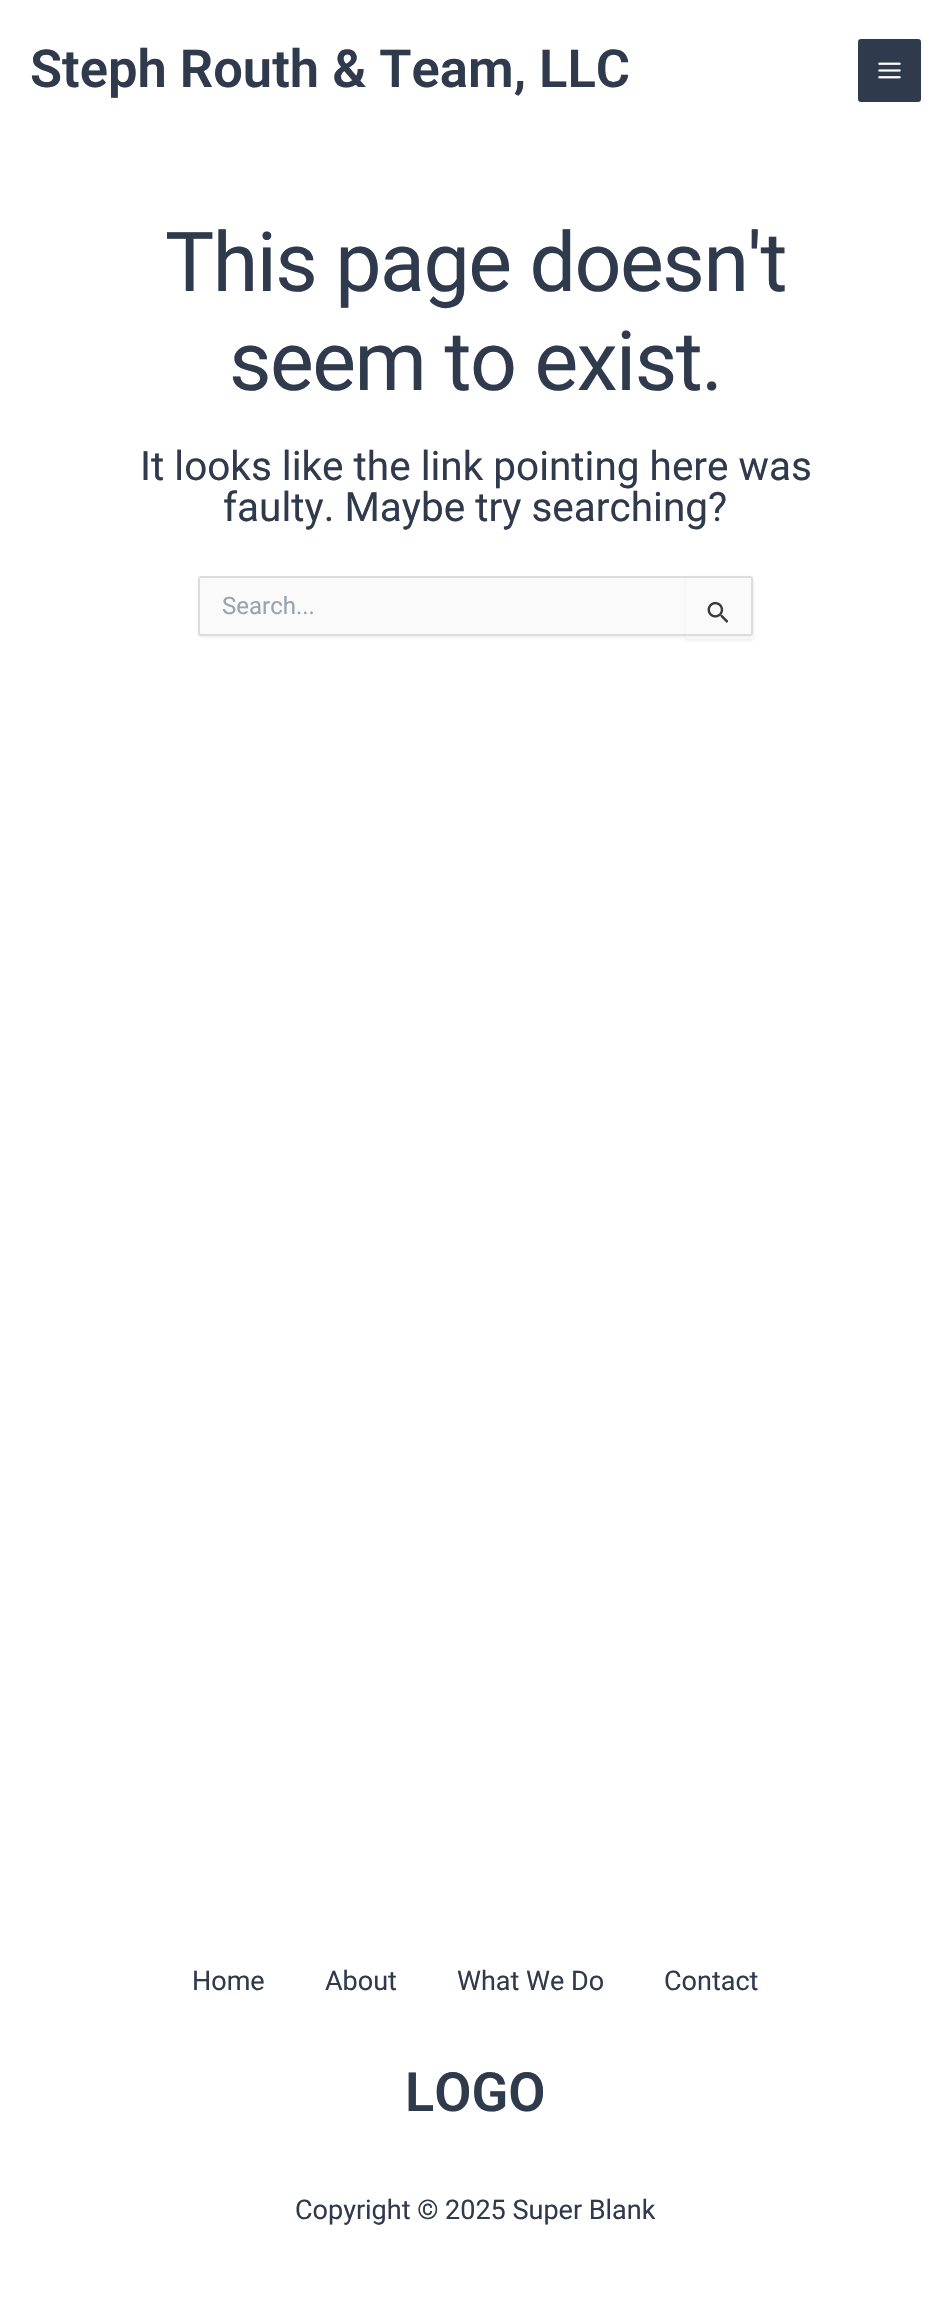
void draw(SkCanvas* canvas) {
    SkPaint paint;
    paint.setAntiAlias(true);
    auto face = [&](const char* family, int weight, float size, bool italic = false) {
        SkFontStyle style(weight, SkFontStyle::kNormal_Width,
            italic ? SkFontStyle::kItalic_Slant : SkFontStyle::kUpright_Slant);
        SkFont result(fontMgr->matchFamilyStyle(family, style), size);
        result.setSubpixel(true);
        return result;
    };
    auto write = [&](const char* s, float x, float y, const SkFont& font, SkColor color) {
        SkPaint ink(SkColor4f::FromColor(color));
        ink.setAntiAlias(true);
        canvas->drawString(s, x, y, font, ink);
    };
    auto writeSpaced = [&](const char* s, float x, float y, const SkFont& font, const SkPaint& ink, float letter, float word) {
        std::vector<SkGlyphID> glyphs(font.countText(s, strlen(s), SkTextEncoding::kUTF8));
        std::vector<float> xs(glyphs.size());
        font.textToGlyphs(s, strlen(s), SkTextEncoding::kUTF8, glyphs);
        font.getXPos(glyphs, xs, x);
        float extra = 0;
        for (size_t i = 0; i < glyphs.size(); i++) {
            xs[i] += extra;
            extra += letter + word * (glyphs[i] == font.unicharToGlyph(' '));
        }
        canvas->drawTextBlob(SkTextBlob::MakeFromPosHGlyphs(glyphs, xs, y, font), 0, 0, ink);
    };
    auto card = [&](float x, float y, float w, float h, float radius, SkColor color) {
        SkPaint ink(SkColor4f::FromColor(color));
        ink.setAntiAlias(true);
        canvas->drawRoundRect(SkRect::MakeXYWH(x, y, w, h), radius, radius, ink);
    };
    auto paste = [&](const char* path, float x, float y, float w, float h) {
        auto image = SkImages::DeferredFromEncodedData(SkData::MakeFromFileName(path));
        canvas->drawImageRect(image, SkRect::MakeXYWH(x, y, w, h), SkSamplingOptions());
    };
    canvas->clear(SK_ColorWHITE);
    auto kFont1 = face("Roboto", 600, 52.5f);
    write("Steph Routh & Team, LLC", 30, 87, kFont1, SkColorSetRGB(48, 58, 77));
    card(858, 39, 63, 63, 3, SkColorSetRGB(48, 58, 77));
    paste("pic1.png", 878, 62, 23, 17);
    auto kFont2 = face("Roboto", 400, 82.5f);
    paint.setColor(SkColorSetRGB(48, 58, 77));
    writeSpaced("This page doesn't", 165, 291, kFont2, paint, -1.5f, 0);
    writeSpaced("seem to exist.", 229, 390, kFont2, paint, -1.5f, 0);
    auto kFont3 = face("Roboto", 400, 40.5f);
    write("It looks like the link pointing here was", 140, 480, kFont3, SkColorSetRGB(48, 58, 77));
    write("faulty. Maybe try searching?", 223, 521, kFont3, SkColorSetRGB(48, 58, 77));
    paint.setColor(SkColorSetARGB(13, 0, 0, 0));
    paint.setMaskFilter(SkMaskFilter::MakeBlur(kNormal_SkBlurStyle, 1.5f));
    canvas->drawRoundRect(SkRect::MakeXYWH(198, 578, 555, 60), 3, 3, paint);
    paint.setMaskFilter(nullptr);
    paint.setColor(SkColorSetRGB(250, 250, 250));
    canvas->drawRoundRect(SkRect::MakeXYWH(199, 577, 553, 58), 2, 2, paint);
    paint.setStyle(SkPaint::kStroke_Style);
    paint.setStrokeWidth(2);
    paint.setColor(SkColorSetRGB(221, 221, 221));
    canvas->drawRoundRect(SkRect::MakeXYWH(199, 577, 553, 58), 2, 2, paint);
    auto kFont4 = face("Roboto", 400, 24);
    write("Search...", 222, 614, kFont4, SkColorSetRGB(156, 163, 175));
    paste("pic2.png", 707, 602, 21, 21);
    canvas->save();
    canvas->clipPath(SkPathBuilder(SkPathFillType::kEvenOdd).moveTo(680, 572).lineTo(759, 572).lineTo(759, 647).lineTo(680, 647).close().moveTo(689, 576).lineTo(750, 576).cubicTo(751.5f, 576, 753, 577.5f, 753, 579).lineTo(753, 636).cubicTo(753, 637.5f, 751.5f, 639, 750, 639).lineTo(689, 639).cubicTo(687.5f, 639, 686, 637.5f, 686, 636).lineTo(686, 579).cubicTo(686, 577.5f, 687.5f, 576, 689, 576).close().detach(), true);
    paint.setStyle(SkPaint::kFill_Style);
    paint.setColor(SkColorSetARGB(13, 0, 0, 0));
    paint.setMaskFilter(SkMaskFilter::MakeBlur(kNormal_SkBlurStyle, 1.5f));
    canvas->drawRoundRect(SkRect::MakeXYWH(686, 578, 67, 63), 3, 3, paint);
    paint.setMaskFilter(nullptr);
    canvas->restore();
    auto kFont5 = face("Roboto", 400, 27);
    write("Home", 192, 1990, kFont5, SkColorSetRGB(48, 58, 77));
    write("About", 325, 1990, kFont5, SkColorSetRGB(48, 58, 77));
    write("What We Do", 457, 1990, kFont5, SkColorSetRGB(48, 58, 77));
    write("Contact", 664, 1990, kFont5, SkColorSetRGB(48, 58, 77));
    auto kFont6 = face("Roboto", 600, 54);
    write("LOGO", 405, 2111, kFont6, SkColorSetRGB(48, 58, 77));
    write("Copyright © 2025 Super Blank", 295, 2219, kFont5, SkColorSetRGB(48, 58, 77));
}
